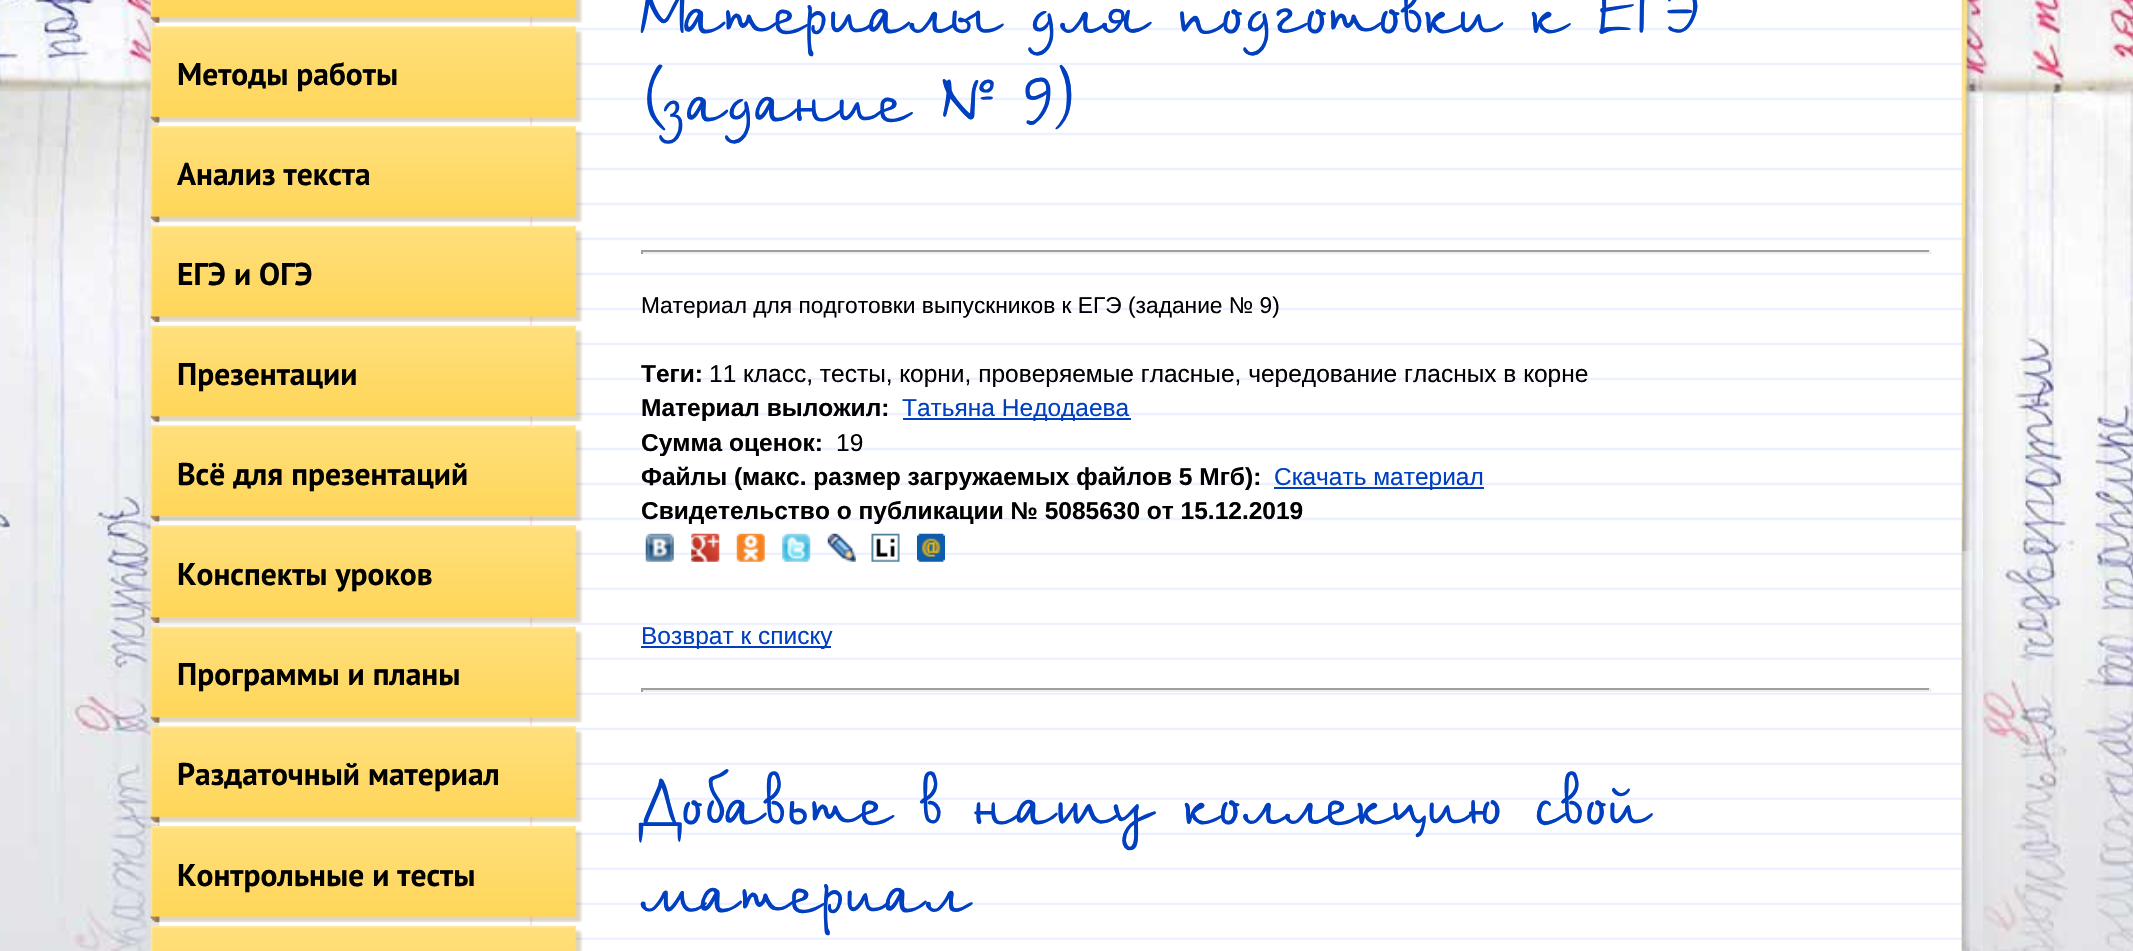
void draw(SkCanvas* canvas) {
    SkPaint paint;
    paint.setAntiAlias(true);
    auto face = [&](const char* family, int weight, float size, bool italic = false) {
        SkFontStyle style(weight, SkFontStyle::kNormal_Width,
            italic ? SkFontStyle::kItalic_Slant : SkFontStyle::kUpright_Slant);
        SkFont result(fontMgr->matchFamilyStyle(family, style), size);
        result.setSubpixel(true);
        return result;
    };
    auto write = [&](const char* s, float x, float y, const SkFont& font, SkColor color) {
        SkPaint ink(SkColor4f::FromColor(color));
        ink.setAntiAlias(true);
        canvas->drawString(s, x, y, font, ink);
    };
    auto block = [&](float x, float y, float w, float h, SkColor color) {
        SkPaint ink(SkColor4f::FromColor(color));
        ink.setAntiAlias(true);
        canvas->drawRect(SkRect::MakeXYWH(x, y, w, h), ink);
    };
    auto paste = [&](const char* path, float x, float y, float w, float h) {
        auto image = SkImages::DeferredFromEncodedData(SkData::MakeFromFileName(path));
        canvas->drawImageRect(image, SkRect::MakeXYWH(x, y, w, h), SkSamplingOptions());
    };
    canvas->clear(SK_ColorWHITE);
    paste("pic1.png", 0, 0, 2133, 951);
    paste("pic2.png", 159, 0, 1811, 951);
    paste("pic3.png", 159, 0, 1817, 552);
    canvas->save();
    canvas->clipPath(SkPathBuilder(SkPathFillType::kEvenOdd).moveTo(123, 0).lineTo(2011, 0).lineTo(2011, 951).lineTo(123, 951).close().moveTo(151, -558).lineTo(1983, -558).lineTo(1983, 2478).lineTo(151, 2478).close().detach(), true);
    paint.setColor(SkColorSetRGB(217, 217, 217));
    paint.setMaskFilter(SkMaskFilter::MakeBlur(kNormal_SkBlurStyle, 9));
    canvas->drawRect(SkRect::MakeXYWH(151, -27, 1832, 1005), paint);
    paint.setMaskFilter(nullptr);
    canvas->restore();
    paste("pic4.png", 150, 0, 433, 23);
    paste("pic5.png", 150, 26, 433, 97);
    auto kFont1 = face("PT Sans", 700, 31.5f);
    write("Методы работы", 177, 85, kFont1, SK_ColorBLACK);
    paste("pic6.png", 150, 126, 433, 97);
    write("Анализ текста", 177, 185, kFont1, SK_ColorBLACK);
    paste("pic7.png", 150, 225, 433, 97);
    write("ЕГЭ и ОГЭ", 177, 285, kFont1, SK_ColorBLACK);
    paste("pic8.png", 150, 325, 433, 97);
    write("Презентации", 177, 385, kFont1, SK_ColorBLACK);
    paste("pic9.png", 150, 425, 433, 97);
    write("Всё для презентаций", 177, 485, kFont1, SK_ColorBLACK);
    paste("pic10.png", 150, 525, 433, 98);
    write("Конспекты уроков", 177, 585, kFont1, SK_ColorBLACK);
    paste("pic11.png", 150, 626, 433, 97);
    write("Программы и планы", 177, 685, kFont1, SK_ColorBLACK);
    paste("pic12.png", 150, 726, 433, 97);
    write("Раздаточный материал", 177, 785, kFont1, SK_ColorBLACK);
    paste("pic13.png", 150, 826, 433, 97);
    write("Контрольные и тесты", 177, 886, kFont1, SK_ColorBLACK);
    paste("pic14.png", 150, 925, 433, 26);
    auto kFont2 = face("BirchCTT", 400, 63);
    write("Материалы для подготовки к ЕГЭ", 641, 33, kFont2, SkColorSetRGB(0, 63, 192));
    write("(задание № 9)", 641, 121, kFont2, SkColorSetRGB(0, 63, 192));
    block(641, 250, 1289, 2, SkColorSetRGB(159, 159, 159));
    block(1929, 250, 2, 4, SkColorSetRGB(238, 238, 238));
    block(641, 252, 1289, 2, SkColorSetRGB(238, 238, 238));
    block(641, 250, 2, 4, SkColorSetRGB(159, 159, 159));
    auto kFont3 = face("Liberation Sans", 400, 22.75f);
    write("Материал для подготовки выпускников к ЕГЭ (задание № 9)", 641, 313, kFont3, SK_ColorBLACK);
    auto kFont4 = face("Liberation Sans", 700, 24.5f);
    write("Теги:", 641, 382, kFont4, SK_ColorBLACK);
    auto kFont5 = face("Liberation Sans", 400, 24.5f);
    write("11 класс, тесты, корни, проверяемые гласные, чередование гласных в корне", 709, 382, kFont5, SK_ColorBLACK);
    write("Материал выложил:", 641, 416, kFont4, SK_ColorBLACK);
    block(903, 418, 228, 2, SkColorSetRGB(0, 63, 192));
    write("Татьяна Недодаева", 902, 416, kFont5, SkColorSetRGB(0, 63, 192));
    write("Сумма оценок:", 641, 451, kFont4, SK_ColorBLACK);
    write("19", 836, 451, kFont5, SK_ColorBLACK);
    write("Файлы (макс. размер загружаемых файлов 5 Мгб):", 641, 485, kFont4, SK_ColorBLACK);
    block(1274, 487, 210, 2, SkColorSetRGB(0, 63, 192));
    write("Скачать материал", 1274, 485, kFont5, SkColorSetRGB(0, 63, 192));
    write("Свидетельство о публикации № 5085630 от 15.12.2019", 641, 519, kFont4, SK_ColorBLACK);
    paste("pic15.png", 645, 533, 29, 29);
    paste("pic16.png", 691, 533, 29, 29);
    paste("pic17.png", 736, 533, 29, 29);
    paste("pic18.png", 782, 533, 29, 29);
    paste("pic19.png", 827, 533, 29, 29);
    paste("pic20.png", 871, 533, 29, 29);
    paste("pic21.png", 917, 533, 28, 29);
    block(641, 646, 190, 2, SkColorSetRGB(0, 63, 192));
    write("Возврат к списку", 641, 644, kFont5, SkColorSetRGB(0, 63, 192));
    block(641, 688, 1289, 2, SkColorSetRGB(159, 159, 159));
    block(1929, 688, 2, 4, SkColorSetRGB(238, 238, 238));
    block(641, 690, 1289, 2, SkColorSetRGB(238, 238, 238));
    block(641, 688, 2, 4, SkColorSetRGB(159, 159, 159));
    write("Добавьте в нашу коллекцию свой", 641, 824, kFont2, SkColorSetRGB(0, 63, 192));
    write("материал", 641, 912, kFont2, SkColorSetRGB(0, 63, 192));
}
